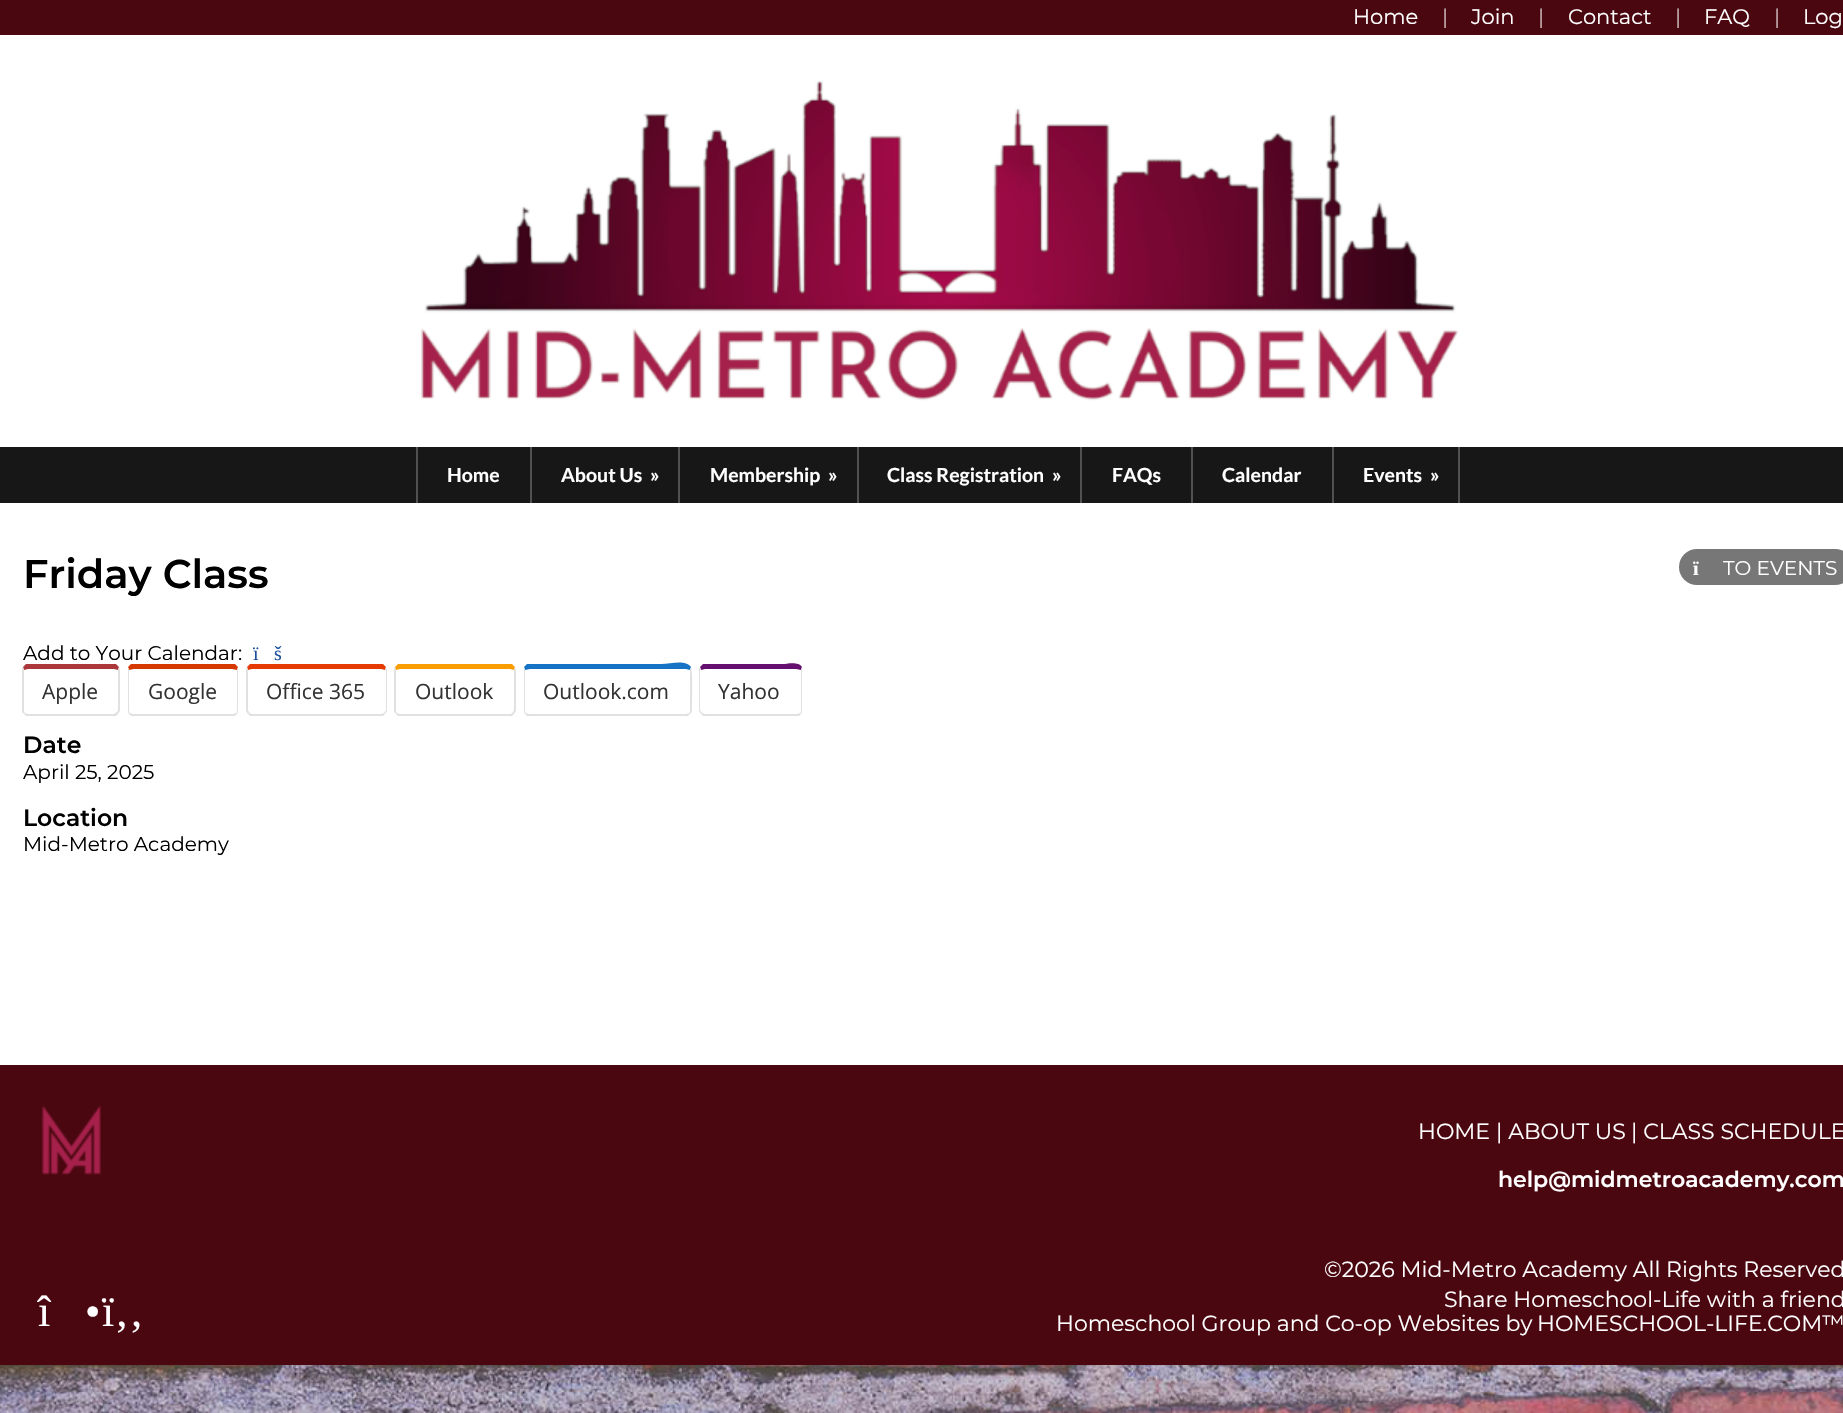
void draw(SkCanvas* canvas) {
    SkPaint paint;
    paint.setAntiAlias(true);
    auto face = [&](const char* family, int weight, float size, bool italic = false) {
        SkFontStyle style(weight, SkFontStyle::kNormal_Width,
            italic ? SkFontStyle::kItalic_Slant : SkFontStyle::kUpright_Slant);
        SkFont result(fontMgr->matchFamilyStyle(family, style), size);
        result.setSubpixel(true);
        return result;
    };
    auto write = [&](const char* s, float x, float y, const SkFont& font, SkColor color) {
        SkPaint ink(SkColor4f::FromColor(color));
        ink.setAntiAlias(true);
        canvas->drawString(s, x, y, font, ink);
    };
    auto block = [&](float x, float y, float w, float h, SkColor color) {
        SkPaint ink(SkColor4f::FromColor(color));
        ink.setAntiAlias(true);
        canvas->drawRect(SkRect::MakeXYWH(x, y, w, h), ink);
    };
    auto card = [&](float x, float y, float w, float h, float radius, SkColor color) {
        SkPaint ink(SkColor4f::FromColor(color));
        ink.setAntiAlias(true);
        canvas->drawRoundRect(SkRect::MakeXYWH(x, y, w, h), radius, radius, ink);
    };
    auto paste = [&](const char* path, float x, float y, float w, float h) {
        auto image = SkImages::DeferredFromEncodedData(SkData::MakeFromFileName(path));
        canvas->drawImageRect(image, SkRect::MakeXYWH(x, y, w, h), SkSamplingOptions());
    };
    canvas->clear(SK_ColorWHITE);
    paste("pic1.png", 0, 1365, 1843, 48);
    block(0, 0, 1843, 35, SkColorSetRGB(74, 7, 16));
    auto kFont1 = face("Montserrat", 400, 21);
    write("Home", 1353, 24, kFont1, SK_ColorWHITE);
    write("|", 1442, 24, kFont1, SkColorSetRGB(201, 181, 183));
    write("Join", 1471, 24, kFont1, SK_ColorWHITE);
    write("|", 1538, 24, kFont1, SkColorSetRGB(201, 181, 183));
    write("Contact", 1568, 24, kFont1, SK_ColorWHITE);
    write("|", 1675, 24, kFont1, SkColorSetRGB(201, 181, 183));
    write("FAQ", 1704, 24, kFont1, SK_ColorWHITE);
    write("|", 1774, 24, kFont1, SkColorSetRGB(201, 181, 183));
    write("Log", 1803, 24, kFont1, SK_ColorWHITE);
    paste("pic2.png", 0, 35, 1843, 412);
    block(0, 447, 1843, 56, SkColorSetRGB(23, 23, 23));
    block(416, 447, 2, 56, SkColorSetRGB(81, 81, 81));
    block(530, 447, 2, 56, SkColorSetRGB(81, 81, 81));
    auto kFont2 = face("Lato", 700, 19.5f);
    write("Home", 447, 482, kFont2, SK_ColorWHITE);
    block(678, 447, 2, 56, SkColorSetRGB(81, 81, 81));
    write("About Us", 561, 482, kFont2, SK_ColorWHITE);
    write("»", 650, 482, kFont2, SK_ColorWHITE);
    block(857, 447, 2, 56, SkColorSetRGB(81, 81, 81));
    write("Membership", 710, 482, kFont2, SK_ColorWHITE);
    write("»", 828, 482, kFont2, SK_ColorWHITE);
    block(1080, 447, 2, 56, SkColorSetRGB(81, 81, 81));
    write("Class Registration", 887, 482, kFont2, SK_ColorWHITE);
    write("»", 1052, 482, kFont2, SK_ColorWHITE);
    block(1191, 447, 2, 56, SkColorSetRGB(81, 81, 81));
    write("FAQs", 1112, 482, kFont2, SK_ColorWHITE);
    block(1332, 447, 2, 56, SkColorSetRGB(81, 81, 81));
    write("Calendar", 1222, 482, kFont2, SK_ColorWHITE);
    block(1458, 447, 2, 56, SkColorSetRGB(81, 81, 81));
    write("Events", 1363, 482, kFont2, SK_ColorWHITE);
    write("»", 1430, 482, kFont2, SK_ColorWHITE);
    auto kFont3 = face("Montserrat", 600, 40);
    write("Friday Class", 23, 588, kFont3, SK_ColorBLACK);
    card(1679, 549, 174, 36, 18, SkColorSetRGB(119, 119, 119));
    auto kFont4 = face("Liberation Serif", 700, 20);
    write("ï", 1693, 575, kFont4, SK_ColorWHITE);
    auto kFont5 = face("Montserrat", 400, 20);
    write("TO EVENTS", 1723, 575, kFont5, SK_ColorWHITE);
    write("Add to Your Calendar:", 23, 660, kFont5, SK_ColorBLACK);
    auto kFont6 = face("Liberation Serif", 400, 20);
    write("ï", 253, 660, kFont6, SkColorSetRGB(29, 81, 157));
    write("š", 274, 660, kFont6, SkColorSetRGB(29, 81, 157));
    paint.setColor(SkColorSetRGB(171, 55, 58));
    canvas->drawPath(SkPathBuilder().moveTo(28, 669).lineTo(24, 670).lineTo(23, 667).lineTo(26, 664).lineTo(116, 664).lineTo(119, 667).lineTo(118, 670).lineTo(114, 669).close().detach(), paint);
    paint.setColor(SkColorSetRGB(225, 225, 225));
    canvas->drawPath(SkPathBuilder().moveTo(120, 710).lineTo(120, 670).lineTo(119, 667).lineTo(118, 670).lineTo(118, 710).lineTo(117, 712).lineTo(118, 714).cubicTo(119, 713, 120, 711, 120, 710).close().detach(), paint);
    canvas->drawPath(SkPathBuilder().moveTo(26, 716).lineTo(24, 714).lineTo(25, 713).lineTo(28, 714).lineTo(114, 714).lineTo(117, 712).lineTo(118, 714).lineTo(116, 716).close().detach(), paint);
    canvas->drawPath(SkPathBuilder().moveTo(22, 668).lineTo(23, 667).lineTo(24, 670).lineTo(24, 710).cubicTo(24, 711, 24, 712, 25, 713).lineTo(24, 714).lineTo(22, 712).close().detach(), paint);
    auto kFont7 = face("Open Sans", 400, 21);
    write("Apple", 42, 699, kFont7, SkColorSetRGB(51, 51, 51));
    paint.setColor(SkColorSetRGB(213, 57, 0));
    canvas->drawPath(SkPathBuilder().moveTo(134, 669).lineTo(129, 670).lineTo(128, 667).cubicTo(129, 666, 130, 665, 131, 664).lineTo(235, 664).cubicTo(236, 665, 237, 666, 238, 667).lineTo(237, 670).lineTo(232, 669).close().detach(), paint);
    paint.setColor(SkColorSetRGB(225, 225, 225));
    canvas->drawPath(SkPathBuilder().moveTo(238, 667).lineTo(238, 670).lineTo(238, 710).cubicTo(238, 711, 238, 713, 237, 714).lineTo(236, 713).cubicTo(237, 712, 237, 711, 237, 710).lineTo(237, 670).close().detach(), paint);
    canvas->drawPath(SkPathBuilder().moveTo(131, 716).lineTo(129, 714).lineTo(130, 713).lineTo(133, 714).lineTo(233, 714).lineTo(236, 713).lineTo(237, 714).lineTo(235, 716).close().detach(), paint);
    canvas->drawPath(SkPathBuilder().moveTo(129, 714).cubicTo(128, 713, 128, 711, 128, 710).lineTo(128, 670).lineTo(128, 667).lineTo(129, 670).lineTo(129, 710).cubicTo(129, 711, 129, 712, 130, 713).close().detach(), paint);
    write("Google", 148, 699, kFont7, SkColorSetRGB(51, 51, 51));
    paint.setColor(SkColorSetRGB(229, 58, 0));
    canvas->drawPath(SkPathBuilder().moveTo(252, 669).lineTo(248, 670).lineTo(247, 667).lineTo(250, 664).lineTo(383, 664).lineTo(386, 667).lineTo(385, 670).lineTo(381, 669).close().detach(), paint);
    paint.setColor(SkColorSetRGB(225, 225, 225));
    canvas->drawPath(SkPathBuilder().moveTo(387, 710).lineTo(387, 670).lineTo(386, 667).lineTo(385, 670).lineTo(386, 670).lineTo(386, 710).lineTo(384, 713).lineTo(385, 714).cubicTo(386, 713, 387, 711, 387, 710).close().detach(), paint);
    canvas->drawPath(SkPathBuilder().moveTo(250, 716).lineTo(248, 714).lineTo(249, 712).lineTo(251, 714).lineTo(381, 714).lineTo(384, 713).lineTo(385, 714).lineTo(383, 716).close().detach(), paint);
    canvas->drawPath(SkPathBuilder().moveTo(246, 670).lineTo(246, 710).cubicTo(246, 711, 247, 713, 248, 714).lineTo(249, 712).lineTo(248, 710).lineTo(248, 670).lineTo(247, 667).close().detach(), paint);
    write("Office 365", 266, 699, kFont7, SkColorSetRGB(51, 51, 51));
    paint.setColor(SkColorSetRGB(250, 157, 0));
    canvas->drawPath(SkPathBuilder().moveTo(400, 669).lineTo(396, 670).lineTo(395, 667).lineTo(398, 664).lineTo(512, 664).lineTo(515, 667).lineTo(514, 670).lineTo(510, 669).close().detach(), paint);
    paint.setColor(SkColorSetRGB(225, 225, 225));
    canvas->drawPath(SkPathBuilder().moveTo(516, 710).lineTo(516, 670).lineTo(515, 667).lineTo(514, 670).lineTo(514, 710).lineTo(513, 712).lineTo(514, 714).cubicTo(515, 713, 516, 711, 516, 710).close().detach(), paint);
    canvas->drawPath(SkPathBuilder().moveTo(398, 716).lineTo(396, 714).lineTo(397, 713).lineTo(400, 714).lineTo(510, 714).cubicTo(511, 714, 512, 713, 513, 712).lineTo(514, 714).lineTo(512, 716).close().detach(), paint);
    canvas->drawPath(SkPathBuilder().moveTo(394, 668).lineTo(395, 667).lineTo(396, 670).lineTo(396, 710).cubicTo(396, 711, 396, 712, 397, 713).lineTo(396, 714).lineTo(394, 712).close().detach(), paint);
    write("Outlook", 415, 699, kFont7, SkColorSetRGB(51, 51, 51));
    paint.setColor(SkColorSetRGB(20, 115, 197));
    canvas->drawPath(SkPathBuilder().moveTo(530, 669).lineTo(525, 670).lineTo(524, 667).lineTo(526, 665).lineTo(527, 664).lineTo(661, 664).cubicTo(671, 664, 685, 659, 691, 667).lineTo(690, 670).lineTo(686, 669).close().detach(), paint);
    paint.setColor(SkColorSetRGB(225, 225, 225));
    canvas->drawPath(SkPathBuilder().moveTo(692, 712).lineTo(690, 714).lineTo(689, 713).cubicTo(690, 712, 690, 711, 690, 710).lineTo(690, 670).lineTo(691, 667).cubicTo(693, 669, 692, 706, 692, 712).close().detach(), paint);
    canvas->drawPath(SkPathBuilder().moveTo(527, 716).lineTo(525, 714).lineTo(526, 713).lineTo(529, 714).lineTo(686, 714).lineTo(689, 713).lineTo(690, 714).lineTo(688, 716).close().detach(), paint);
    canvas->drawPath(SkPathBuilder().moveTo(525, 714).cubicTo(524, 713, 524, 711, 524, 710).lineTo(524, 670).lineTo(524, 667).lineTo(525, 670).lineTo(525, 710).cubicTo(525, 711, 525, 712, 526, 713).close().detach(), paint);
    write("Outlook.com", 543, 699, kFont7, SkColorSetRGB(51, 51, 51));
    paint.setColor(SkColorSetRGB(101, 16, 110));
    canvas->drawPath(SkPathBuilder().moveTo(705, 669).lineTo(701, 670).lineTo(700, 667).lineTo(703, 664).lineTo(783, 664).cubicTo(786, 664, 799, 661, 802, 667).lineTo(801, 670).lineTo(796, 669).close().detach(), paint);
    paint.setColor(SkColorSetRGB(225, 225, 225));
    canvas->drawPath(SkPathBuilder().moveTo(802, 667).lineTo(802, 670).lineTo(802, 710).cubicTo(802, 711, 802, 713, 801, 714).lineTo(800, 713).cubicTo(801, 712, 801, 711, 801, 710).lineTo(801, 670).close().detach(), paint);
    canvas->drawPath(SkPathBuilder().moveTo(703, 716).lineTo(701, 714).lineTo(702, 713).lineTo(705, 714).lineTo(797, 714).lineTo(800, 713).lineTo(801, 714).lineTo(799, 716).close().detach(), paint);
    canvas->drawPath(SkPathBuilder().moveTo(699, 670).lineTo(699, 710).cubicTo(699, 711, 700, 713, 701, 714).lineTo(702, 713).lineTo(700, 710).lineTo(700, 670).lineTo(701, 670).lineTo(700, 667).close().detach(), paint);
    write("Yahoo", 718, 699, kFont7, SkColorSetRGB(51, 51, 51));
    auto kFont8 = face("Montserrat", 600, 23.5f);
    write("Date", 23, 753, kFont8, SK_ColorBLACK);
    write("April 25, 2025", 23, 779, kFont5, SK_ColorBLACK);
    write("Location", 23, 826, kFont8, SK_ColorBLACK);
    write("Mid-Metro Academy", 23, 851, kFont5, SK_ColorBLACK);
    block(0, 1065, 1843, 300, SkColorSetRGB(74, 7, 16));
    paste("pic3.png", 41, 1105, 60, 70);
    auto kFont9 = face("Liberation Serif", 400, 44);
    write("î", 38, 1326, kFont9, SK_ColorWHITE);
    write("•", 85, 1326, kFont9, SK_ColorWHITE);
    write("ï‚‚", 102, 1326, kFont9, SK_ColorWHITE);
    auto kFont10 = face("Montserrat", 400, 22);
    write("HOME", 1418, 1139, kFont10, SK_ColorWHITE);
    write("| ABOUT US", 1496, 1139, kFont10, SK_ColorWHITE);
    write("| CLASS SCHEDULE", 1631, 1139, kFont10, SK_ColorWHITE);
    auto kFont11 = face("Montserrat", 600, 22);
    write("help@midmetroacademy.com", 1498, 1187, kFont11, SK_ColorWHITE);
    write("©2026 Mid-Metro Academy All Rights Reserved", 1324, 1277, kFont10, SK_ColorWHITE);
    write("Share Homeschool-Life with a friend", 1444, 1307, kFont10, SK_ColorWHITE);
    write("Homeschool Group and Co-op Websites by", 1056, 1331, kFont10, SK_ColorWHITE);
    write("HOMESCHOOL-LIFE.COM™", 1537, 1331, kFont10, SK_ColorWHITE);
}
